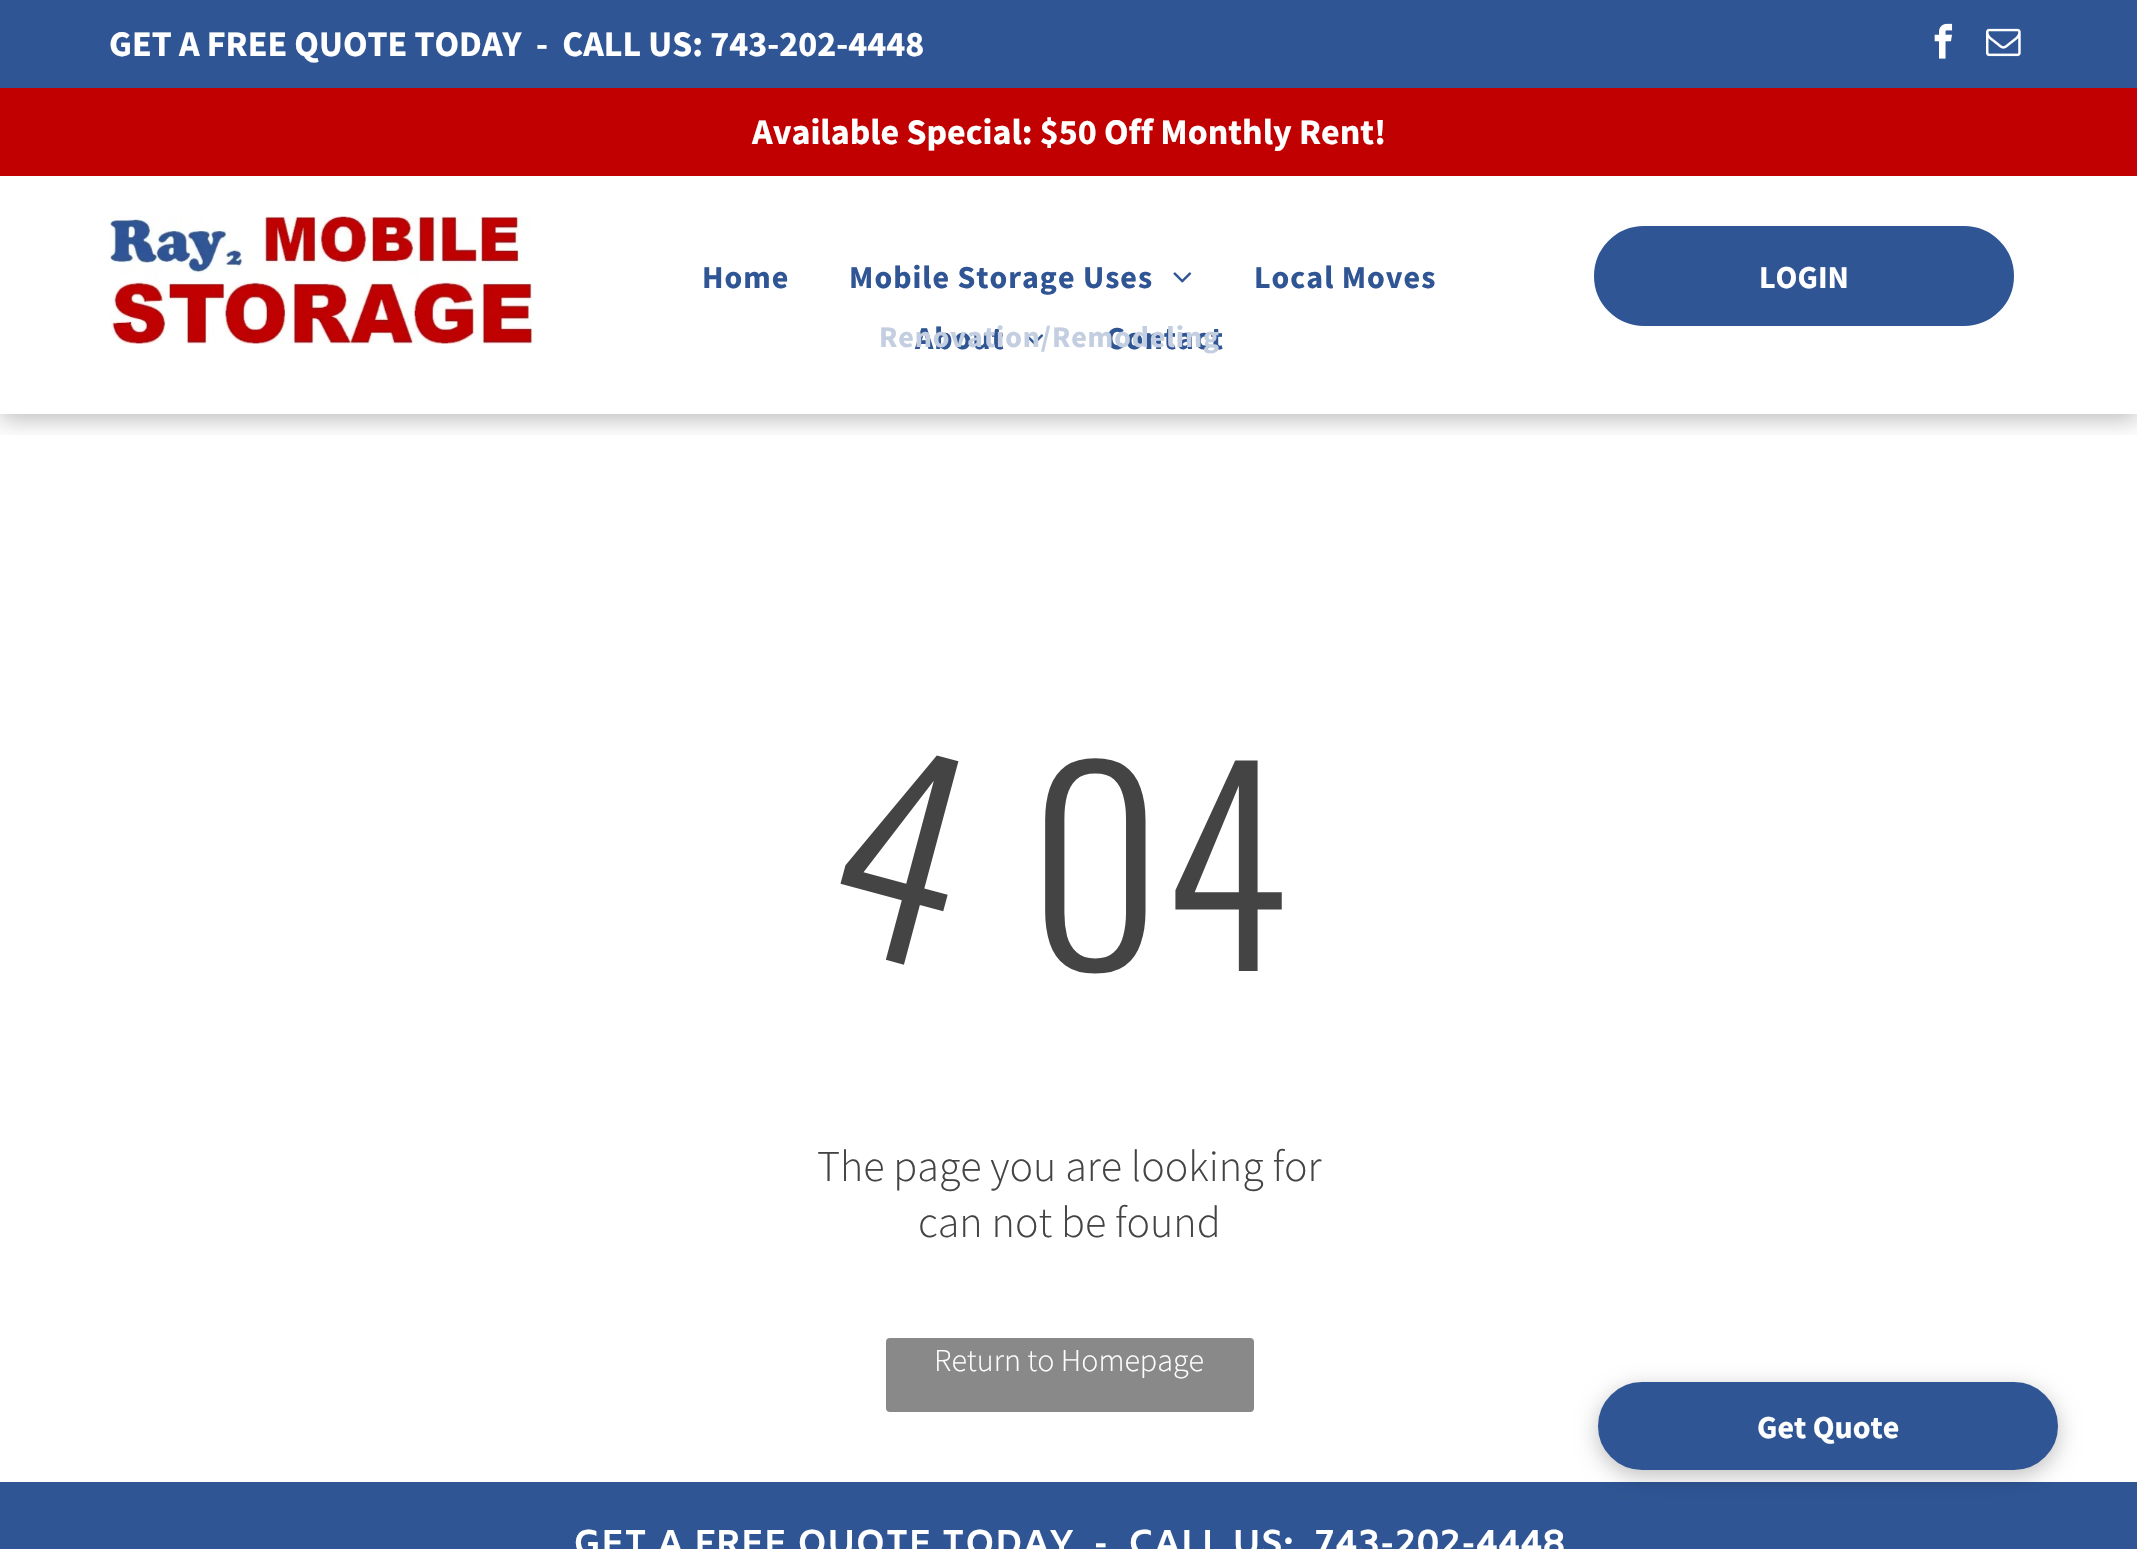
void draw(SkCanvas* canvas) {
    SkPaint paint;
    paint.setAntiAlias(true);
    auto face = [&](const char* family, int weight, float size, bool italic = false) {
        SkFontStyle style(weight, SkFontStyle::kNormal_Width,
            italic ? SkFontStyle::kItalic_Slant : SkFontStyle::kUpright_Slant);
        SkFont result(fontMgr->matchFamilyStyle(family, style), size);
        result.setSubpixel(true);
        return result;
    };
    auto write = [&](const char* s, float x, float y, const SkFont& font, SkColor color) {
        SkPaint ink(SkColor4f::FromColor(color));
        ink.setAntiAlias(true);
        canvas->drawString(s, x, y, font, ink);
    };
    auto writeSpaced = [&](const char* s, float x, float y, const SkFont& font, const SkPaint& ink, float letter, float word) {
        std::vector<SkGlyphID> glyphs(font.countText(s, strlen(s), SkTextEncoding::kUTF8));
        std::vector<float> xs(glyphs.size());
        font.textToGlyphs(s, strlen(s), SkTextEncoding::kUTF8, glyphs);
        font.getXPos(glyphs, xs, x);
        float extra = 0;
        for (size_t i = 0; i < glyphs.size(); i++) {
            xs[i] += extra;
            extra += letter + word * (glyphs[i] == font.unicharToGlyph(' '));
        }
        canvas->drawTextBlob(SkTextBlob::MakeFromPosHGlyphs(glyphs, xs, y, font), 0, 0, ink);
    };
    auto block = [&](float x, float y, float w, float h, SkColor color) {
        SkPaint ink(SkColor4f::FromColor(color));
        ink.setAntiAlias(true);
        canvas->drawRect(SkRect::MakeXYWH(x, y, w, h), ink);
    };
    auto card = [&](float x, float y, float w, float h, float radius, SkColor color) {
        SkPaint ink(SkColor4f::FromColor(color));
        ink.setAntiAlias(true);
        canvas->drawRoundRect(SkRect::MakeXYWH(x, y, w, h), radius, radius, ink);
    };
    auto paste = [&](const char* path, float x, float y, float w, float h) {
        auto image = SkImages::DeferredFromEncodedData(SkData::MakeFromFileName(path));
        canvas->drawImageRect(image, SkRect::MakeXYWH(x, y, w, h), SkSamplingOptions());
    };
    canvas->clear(SK_ColorWHITE);
    canvas->save();
    canvas->clipRect(SkRect::MakeXYWH(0, 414, 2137, 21));
    paint.setColor(SkColorSetARGB(64, 0, 0, 0));
    paint.setMaskFilter(SkMaskFilter::MakeBlur(kNormal_SkBlurStyle, 11));
    canvas->drawRect(SkRect::MakeXYWH(0, 6, 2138, 414), paint);
    paint.setMaskFilter(nullptr);
    canvas->restore();
    block(0, 0, 2137, 88, SkColorSetRGB(47, 85, 148));
    auto kFont1 = face("Source Sans Pro", 700, 36);
    write("GET A FREE QUOTE TODAY  -  CALL US: 743-202-4448", 109, 56, kFont1, SK_ColorWHITE);
    paste("pic1.png", 1934, 23, 19, 36);
    paste("pic2.png", 1986, 28, 35, 29);
    block(0, 88, 2137, 88, SkColorSetRGB(192, 0, 1));
    write("Available Special: $50 Off Monthly Rent!", 752, 144, kFont1, SK_ColorWHITE);
    paste("pic3.png", 110, 216, 423, 128);
    auto kFont2 = face("Source Sans Pro", 700, 32);
    paint.setColor(SkColorSetRGB(47, 85, 148));
    writeSpaced("Home", 702, 288, kFont2, paint, 1, 0);
    writeSpaced("Mobile Storage Uses", 849, 288, kFont2, paint, 1, 0);
    paste("pic4.png", 1173, 272, 19, 11);
    writeSpaced("About", 915, 349, kFont2, paint, 1, 0);
    paste("pic4.png", 1025, 334, 19, 11);
    writeSpaced("Contact", 1106, 349, kFont2, paint, 1, 0);
    auto kFont3 = face("Source Sans Pro", 700, 30);
    paint.setColor(SkColorSetRGB(195, 206, 224));
    writeSpaced("Renovation/Remodeling", 879, 347, kFont3, paint, 0.9f, 0);
    paint.setColor(SkColorSetRGB(47, 85, 148));
    writeSpaced("Local Moves", 1254, 288, kFont2, paint, 1, 0);
    canvas->drawRoundRect(SkRect::MakeXYWH(1596, 228, 416, 96), 48, 48, paint);
    paint.setStyle(SkPaint::kStroke_Style);
    paint.setStrokeWidth(4);
    canvas->drawRoundRect(SkRect::MakeXYWH(1596, 228, 416, 96), 48, 48, paint);
    write("LOGIN", 1759, 288, kFont2, SK_ColorWHITE);
    auto kFont4 = face("Oswald", 300, 260);
    canvas->save();
    canvas->rotate(15, 812, 940);
    write("4", 812, 940, kFont4, SkColorSetRGB(68, 68, 68));
    canvas->restore();
    write("04", 1028, 971, kFont4, SkColorSetRGB(68, 68, 68));
    auto kFont5 = face("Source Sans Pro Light", 300, 44);
    write("The page you are looking for", 817, 1181, kFont5, SkColorSetRGB(68, 68, 68));
    write("can not be found", 918, 1237, kFont5, SkColorSetRGB(68, 68, 68));
    card(886, 1338, 368, 74, 4, SkColorSetRGB(137, 137, 137));
    auto kFont6 = face("Source Sans Pro Light", 300, 32);
    write("Return to Homepage", 934, 1371, kFont6, SK_ColorWHITE);
    block(0, 1482, 2137, 67, SkColorSetRGB(47, 85, 148));
    paint.setStyle(SkPaint::kFill_Style);
    paint.setColor(SkColorSetARGB(64, 0, 0, 0));
    paint.setMaskFilter(SkMaskFilter::MakeBlur(kNormal_SkBlurStyle, 11));
    canvas->drawRoundRect(SkRect::MakeXYWH(1598, 1388, 460, 88), 44, 44, paint);
    paint.setMaskFilter(nullptr);
    paint.setColor(SkColorSetRGB(47, 85, 148));
    canvas->drawRoundRect(SkRect::MakeXYWH(1600, 1384, 456, 84), 42, 42, paint);
    paint.setStyle(SkPaint::kStroke_Style);
    canvas->drawRoundRect(SkRect::MakeXYWH(1600, 1384, 456, 84), 42, 42, paint);
    write("Get Quote", 1757, 1438, kFont2, SK_ColorWHITE);
    auto kFont7 = face("Amiko", 700, 36);
    write("GET A FREE QUOTE TODAY  -  CALL US:", 573, 1555, kFont7, SK_ColorWHITE);
    write("743-202-4448", 1313, 1555, kFont7, SK_ColorWHITE);
}
